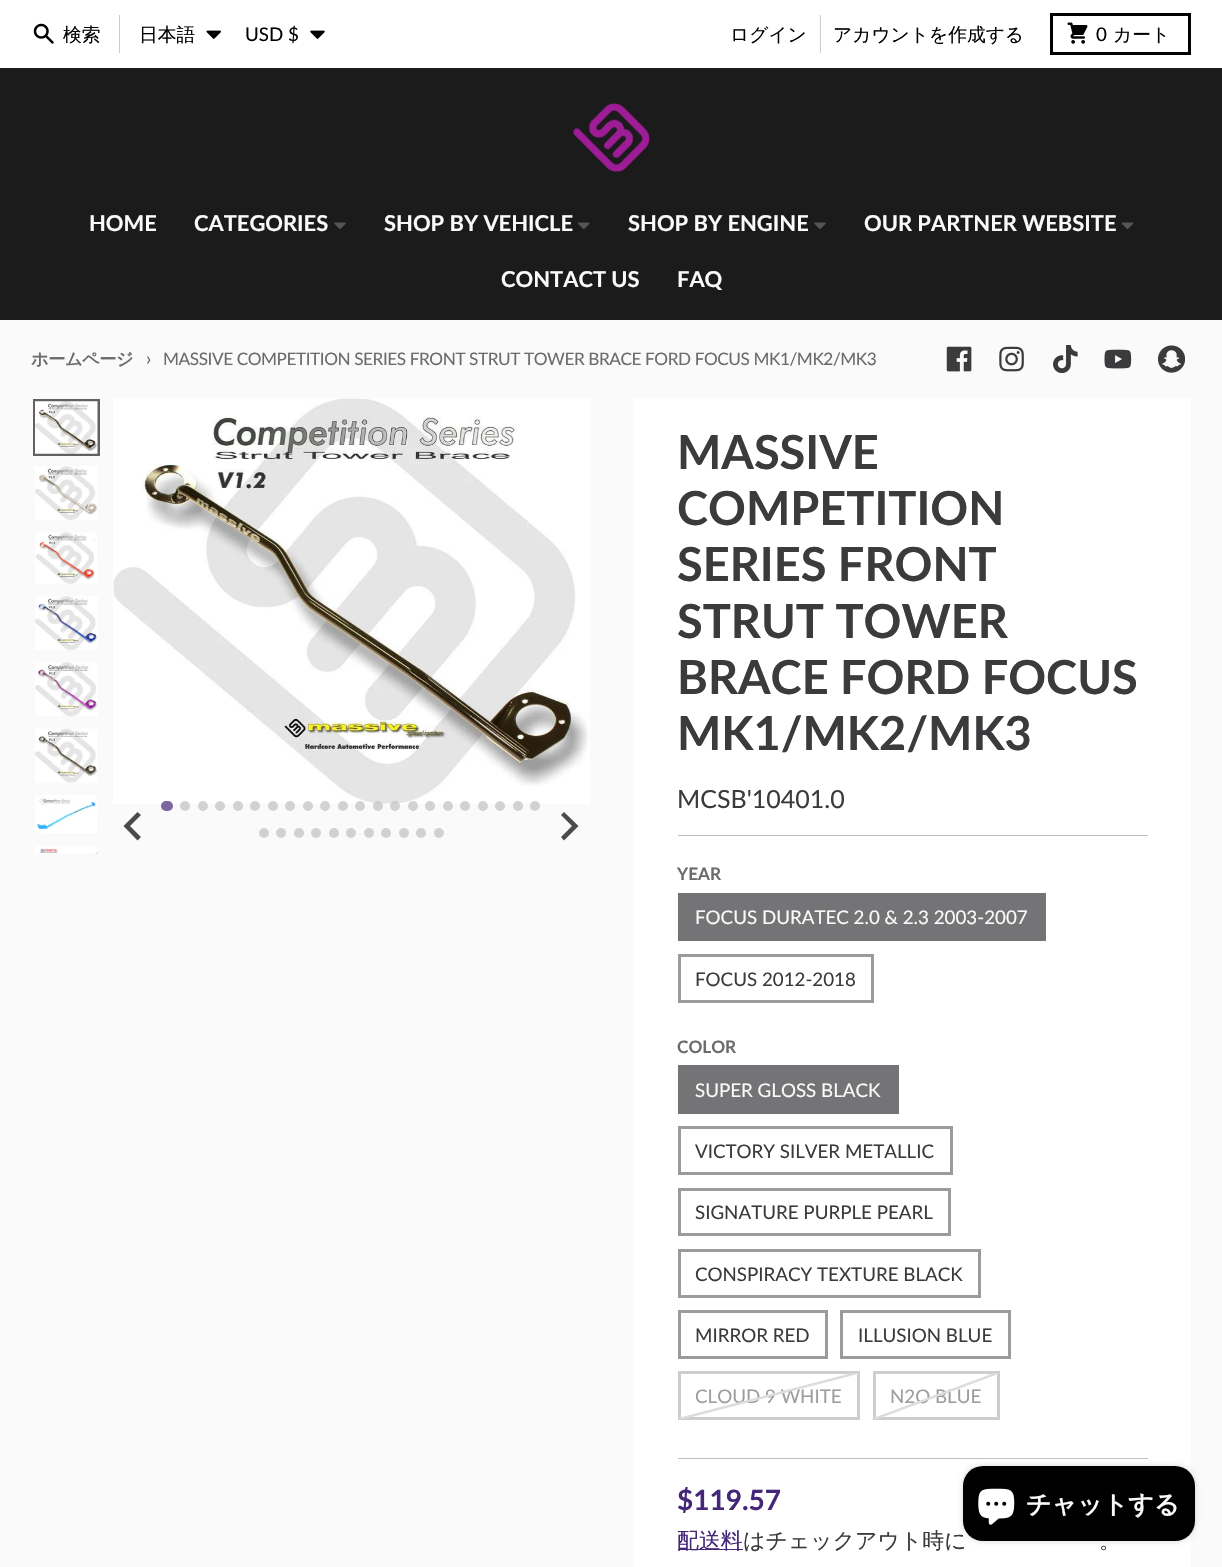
void draw(SkCanvas* canvas) {
    SkPaint paint;
    paint.setAntiAlias(true);
    auto face = [&](const char* family, int weight, float size, bool italic = false) {
        SkFontStyle style(weight, SkFontStyle::kNormal_Width,
            italic ? SkFontStyle::kItalic_Slant : SkFontStyle::kUpright_Slant);
        SkFont result(fontMgr->matchFamilyStyle(family, style), size);
        result.setSubpixel(true);
        return result;
    };
    auto write = [&](const char* s, float x, float y, const SkFont& font, SkColor color) {
        SkPaint ink(SkColor4f::FromColor(color));
        ink.setAntiAlias(true);
        canvas->drawString(s, x, y, font, ink);
    };
    auto writeSpaced = [&](const char* s, float x, float y, const SkFont& font, const SkPaint& ink, float letter, float word) {
        std::vector<SkGlyphID> glyphs(font.countText(s, strlen(s), SkTextEncoding::kUTF8));
        std::vector<float> xs(glyphs.size());
        font.textToGlyphs(s, strlen(s), SkTextEncoding::kUTF8, glyphs);
        font.getXPos(glyphs, xs, x);
        float extra = 0;
        for (size_t i = 0; i < glyphs.size(); i++) {
            xs[i] += extra;
            extra += letter + word * (glyphs[i] == font.unicharToGlyph(' '));
        }
        canvas->drawTextBlob(SkTextBlob::MakeFromPosHGlyphs(glyphs, xs, y, font), 0, 0, ink);
    };
    auto block = [&](float x, float y, float w, float h, SkColor color) {
        SkPaint ink(SkColor4f::FromColor(color));
        ink.setAntiAlias(true);
        canvas->drawRect(SkRect::MakeXYWH(x, y, w, h), ink);
    };
    auto card = [&](float x, float y, float w, float h, float radius, SkColor color) {
        SkPaint ink(SkColor4f::FromColor(color));
        ink.setAntiAlias(true);
        canvas->drawRoundRect(SkRect::MakeXYWH(x, y, w, h), radius, radius, ink);
    };
    auto paste = [&](const char* path, float x, float y, float w, float h) {
        auto image = SkImages::DeferredFromEncodedData(SkData::MakeFromFileName(path));
        canvas->drawImageRect(image, SkRect::MakeXYWH(x, y, w, h), SkSamplingOptions());
    };
    canvas->clear(SkColorSetRGB(27, 27, 27));
    block(0, 0, 1222, 68, SK_ColorWHITE);
    paste("pic1.png", 33, 23, 21, 21);
    auto kFont1 = face("WenQuanYi Zen Hei", 500, 18.75f);
    write("検索", 63, 41, kFont1, SK_ColorBLACK);
    block(119, 15, 1, 38, SkColorSetRGB(204, 204, 204));
    write("日本語", 139, 41, kFont1, SK_ColorBLACK);
    paste("pic2.png", 206, 30, 15, 9);
    auto kFont2 = face("Lato", 400, 18.75f);
    write("USD $", 245, 41, kFont2, SK_ColorBLACK);
    paste("pic3.png", 310, 30, 15, 9);
    write("ログイン", 730, 41, kFont1, SK_ColorBLACK);
    block(820, 15, 1, 38, SkColorSetRGB(204, 204, 204));
    write("アカウントを作成する", 833, 41, kFont1, SK_ColorBLACK);
    paint.setStyle(SkPaint::kStroke_Style);
    paint.setStrokeWidth(3);
    paint.setColor(SK_ColorBLACK);
    canvas->drawRect(SkRect::MakeXYWH(1051.5f, 14.5f, 138, 39), paint);
    paste("pic4.png", 1067, 22, 21, 22);
    write("0", 1096, 41, kFont2, SK_ColorBLACK);
    write("カート", 1113, 41, kFont1, SK_ColorBLACK);
    paste("pic5.png", 573, 103, 77, 69);
    auto kFont3 = face("Lato", 700, 21.9f);
    write("HOME", 89, 231, kFont3, SkColorSetRGB(250, 250, 250));
    write("CATEGORIES", 194, 231, kFont3, SkColorSetRGB(250, 250, 250));
    paste("pic6.png", 334, 222, 12, 7);
    write("SHOP BY VEHICLE", 384, 231, kFont3, SkColorSetRGB(250, 250, 250));
    paste("pic7.png", 578, 222, 12, 7);
    write("SHOP BY ENGINE", 628, 231, kFont3, SkColorSetRGB(250, 250, 250));
    paste("pic6.png", 814, 222, 12, 7);
    write("OUR PARTNER WEBSITE", 864, 231, kFont3, SkColorSetRGB(250, 250, 250));
    paste("pic8.png", 1121, 222, 13, 7);
    write("CONTACT US", 501, 287, kFont3, SkColorSetRGB(250, 250, 250));
    write("FAQ", 677, 287, kFont3, SkColorSetRGB(250, 250, 250));
    block(0, 320, 1222, 1247, SkColorSetRGB(250, 250, 250));
    auto kFont4 = face("WenQuanYi Zen Hei", 700, 17.2f);
    paint.setStyle(SkPaint::kFill_Style);
    paint.setColor(SkColorSetRGB(107, 106, 108));
    writeSpaced("ホームページ", 31, 365, kFont4, paint, -0.43f, 0);
    writeSpaced("›", 146, 365, kFont2, paint, -0.43f, 0);
    auto kFont5 = face("Lato", 400, 17.2f);
    writeSpaced("MASSIVE COMPETITION SERIES FRONT STRUT TOWER BRACE FORD FOCUS MK1/MK2/MK3", 163, 365, kFont5, paint, -0.43f, 0);
    paste("pic9.png", 946, 346, 26, 26);
    paste("pic10.png", 999, 346, 25, 26);
    paste("pic11.png", 1053, 345, 25, 28);
    paste("pic12.png", 1104, 349, 28, 20);
    paste("pic13.png", 1158, 345, 27, 28);
    paint.setStyle(SkPaint::kStroke_Style);
    paint.setColor(SkColorSetRGB(97, 96, 99));
    canvas->drawRect(SkRect::MakeXYWH(34.5f, 400.5f, 64, 54), paint);
    paste("pic14.png", 35, 401, 63, 53);
    paste("pic15.png", 35, 466, 63, 54);
    paste("pic16.png", 35, 532, 62, 52);
    paste("pic17.png", 35, 596, 63, 54);
    paste("pic18.png", 35, 662, 63, 55);
    paste("pic19.png", 35, 728, 62, 55);
    paste("pic20.png", 35, 795, 62, 38);
    paste("pic21.png", 35, 846, 63, 8);
    paste("pic22.png", 113, 398, 477, 406);
    card(161, 801, 12, 10, 5, SkColorSetARGB(179, 68, 39, 120));
    paint.setStyle(SkPaint::kFill_Style);
    paint.setColor(SkColorSetARGB(179, 193, 192, 193));
    canvas->drawCircle(185, 806, 5, paint);
    canvas->drawCircle(203, 806, 5, paint);
    canvas->drawCircle(220, 806, 5, paint);
    canvas->drawCircle(238, 806, 5, paint);
    canvas->drawCircle(255, 806, 5, paint);
    canvas->drawCircle(273, 806, 5, paint);
    canvas->drawCircle(290, 806, 5, paint);
    canvas->drawCircle(308, 806, 5, paint);
    canvas->drawCircle(325, 806, 5, paint);
    canvas->drawCircle(343, 806, 5, paint);
    canvas->drawCircle(360, 806, 5, paint);
    canvas->drawCircle(378, 806, 5, paint);
    canvas->drawCircle(395, 806, 5, paint);
    canvas->drawCircle(413, 806, 5, paint);
    canvas->drawCircle(430, 806, 5, paint);
    canvas->drawCircle(448, 806, 5, paint);
    canvas->drawCircle(465, 806, 5, paint);
    canvas->drawCircle(483, 806, 5, paint);
    canvas->drawCircle(500, 806, 5, paint);
    canvas->drawCircle(518, 806, 5, paint);
    canvas->drawCircle(535, 806, 5, paint);
    paint.setColor(SkColorSetRGB(210, 209, 210));
    canvas->drawCircle(264, 833, 5, paint);
    canvas->drawCircle(281, 833, 5, paint);
    canvas->drawCircle(299, 833, 5, paint);
    canvas->drawCircle(316, 833, 5, paint);
    canvas->drawCircle(334, 833, 5, paint);
    canvas->drawCircle(351, 833, 5, paint);
    canvas->drawCircle(369, 833, 5, paint);
    canvas->drawCircle(386, 833, 5, paint);
    canvas->drawCircle(404, 833, 5, paint);
    canvas->drawCircle(421, 833, 5, paint);
    canvas->drawCircle(439, 833, 5, paint);
    paint.setColor(SkColorSetRGB(75, 75, 75));
    canvas->drawPath(SkPathBuilder().moveTo(137.5f, 812).lineTo(141, 815).lineTo(130, 826).lineTo(141, 837).lineTo(137.5f, 840.5f).lineTo(123.5f, 826).close().detach(), paint);
    canvas->drawPath(SkPathBuilder().moveTo(564, 812).lineTo(561, 815).lineTo(572, 826).lineTo(561, 837).lineTo(564, 840.5f).lineTo(578.5f, 826).close().detach(), paint);
    block(634, 398, 557, 1169, SK_ColorWHITE);
    auto kFont6 = face("Lato", 700, 46.9f);
    write("MASSIVE", 677, 469, kFont6, SkColorSetRGB(59, 58, 61));
    write("COMPETITION", 677, 525, kFont6, SkColorSetRGB(59, 58, 61));
    write("SERIES FRONT", 677, 581, kFont6, SkColorSetRGB(59, 58, 61));
    write("STRUT TOWER", 677, 638, kFont6, SkColorSetRGB(59, 58, 61));
    write("BRACE FORD FOCUS", 677, 694, kFont6, SkColorSetRGB(59, 58, 61));
    write("MK1/MK2/MK3", 677, 750, kFont6, SkColorSetRGB(59, 58, 61));
    auto kFont7 = face("Lato", 400, 25);
    write("MCSB'10401.0", 677, 808, kFont7, SkColorSetRGB(59, 58, 61));
    block(678, 835, 470, 1, SkColorSetRGB(193, 192, 193));
    block(678, 1458, 470, 1, SkColorSetRGB(193, 192, 193));
    auto kFont8 = face("Lato", 700, 17.2f);
    write("YEAR", 677, 880, kFont8, SkColorSetRGB(107, 106, 108));
    block(678, 893, 368, 48, SkColorSetRGB(116, 116, 118));
    write("FOCUS DURATEC 2.0 & 2.3 2003-2007", 695, 924, kFont2, SkColorSetRGB(250, 250, 250));
    paint.setStyle(SkPaint::kStroke_Style);
    paint.setColor(SkColorSetRGB(155, 154, 156));
    canvas->drawRect(SkRect::MakeXYWH(679.5f, 955.5f, 193, 46), paint);
    write("FOCUS 2012-2018", 695, 986, kFont2, SkColorSetRGB(59, 58, 61));
    write("COLOR", 677, 1053, kFont8, SkColorSetRGB(107, 106, 108));
    block(678, 1065, 221, 49, SkColorSetRGB(116, 116, 118));
    write("SUPER GLOSS BLACK", 695, 1097, kFont2, SkColorSetRGB(250, 250, 250));
    canvas->drawRect(SkRect::MakeXYWH(679.5f, 1127.5f, 272, 46), paint);
    write("VICTORY SILVER METALLIC", 695, 1158, kFont2, SkColorSetRGB(59, 58, 61));
    canvas->drawRect(SkRect::MakeXYWH(679.5f, 1189.5f, 270, 45), paint);
    write("SIGNATURE PURPLE PEARL", 695, 1219, kFont2, SkColorSetRGB(59, 58, 61));
    canvas->drawRect(SkRect::MakeXYWH(679.5f, 1250.5f, 300, 46), paint);
    write("CONSPIRACY TEXTURE BLACK", 695, 1281, kFont2, SkColorSetRGB(59, 58, 61));
    canvas->drawRect(SkRect::MakeXYWH(679.5f, 1311.5f, 147, 46), paint);
    write("MIRROR RED", 695, 1342, kFont2, SkColorSetRGB(59, 58, 61));
    canvas->drawRect(SkRect::MakeXYWH(841.5f, 1311.5f, 168, 46), paint);
    write("ILLUSION BLUE", 858, 1342, kFont2, SkColorSetRGB(59, 58, 61));
    paint.setColor(SkColorSetRGB(205, 205, 206));
    canvas->drawRect(SkRect::MakeXYWH(679.5f, 1372.5f, 179, 46), paint);
    write("CLOUD 9 WHITE", 695, 1403, kFont2, SkColorSetRGB(157, 157, 158));
    canvas->save();
    canvas->clipRect(SkRect::MakeXYWH(679, 1373, 180, 46));
    paint.setStrokeWidth(2.5f);
    paint.setColor(SkColorSetRGB(220, 220, 221));
    canvas->drawPath(SkPathBuilder().moveTo(679, 1419).lineTo(859, 1372.5f).detach(), paint);
    canvas->restore();
    paint.setStrokeWidth(3);
    paint.setColor(SkColorSetRGB(205, 205, 206));
    canvas->drawRect(SkRect::MakeXYWH(874.5f, 1372.5f, 124, 46), paint);
    write("N2O BLUE", 890, 1403, kFont2, SkColorSetRGB(157, 157, 158));
    canvas->save();
    canvas->clipRect(SkRect::MakeXYWH(874, 1373, 125, 46));
    paint.setStrokeWidth(2.5f);
    paint.setColor(SkColorSetRGB(220, 220, 221));
    canvas->drawPath(SkPathBuilder().moveTo(874, 1419).lineTo(999, 1372.5f).detach(), paint);
    canvas->restore();
    auto kFont9 = face("Lato", 700, 28);
    write("$119.57", 677, 1510, kFont9, SkColorSetRGB(68, 39, 120));
    block(678, 1549, 65, 1, SkColorSetRGB(68, 39, 120));
    auto kFont10 = face("WenQuanYi Zen Hei", 500, 21.9f);
    write("配送料", 677, 1548, kFont10, SkColorSetRGB(68, 39, 120));
    write("はチェックアウト時に", 743, 1548, kFont10, SkColorSetRGB(59, 58, 61));
    write("。", 1099, 1548, kFont10, SkColorSetRGB(59, 58, 61));
    paint.setStyle(SkPaint::kFill_Style);
    paint.setColor(SkColorSetARGB(38, 0, 0, 0));
    paint.setMaskFilter(SkMaskFilter::MakeBlur(kNormal_SkBlurStyle, 3));
    canvas->drawRoundRect(SkRect::MakeXYWH(963, 1466, 232, 75), 20, 20, paint);
    paint.setMaskFilter(nullptr);
    card(963, 1466, 232, 75, 20, SK_ColorBLACK);
    paste("pic23.png", 978, 1488, 37, 37);
    auto kFont11 = face("WenQuanYi Zen Hei", 700, 25);
    write("チャットする", 1026, 1513, kFont11, SkColorSetRGB(250, 250, 250));
}
